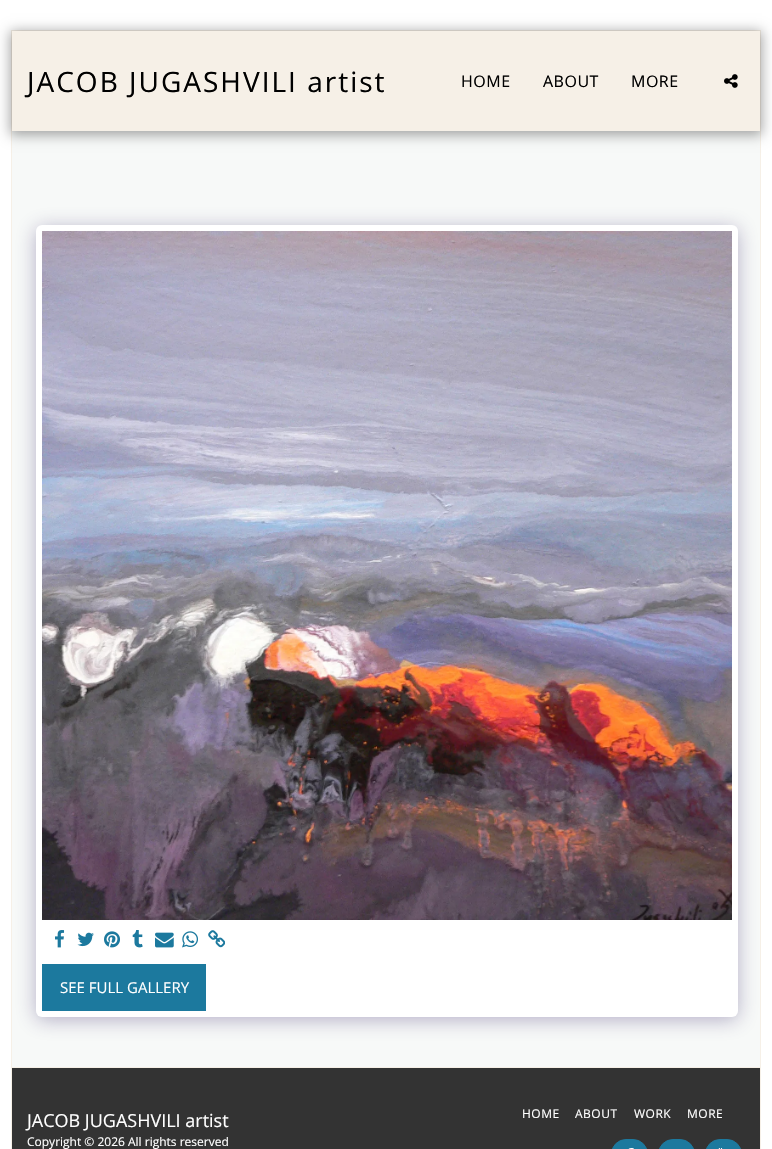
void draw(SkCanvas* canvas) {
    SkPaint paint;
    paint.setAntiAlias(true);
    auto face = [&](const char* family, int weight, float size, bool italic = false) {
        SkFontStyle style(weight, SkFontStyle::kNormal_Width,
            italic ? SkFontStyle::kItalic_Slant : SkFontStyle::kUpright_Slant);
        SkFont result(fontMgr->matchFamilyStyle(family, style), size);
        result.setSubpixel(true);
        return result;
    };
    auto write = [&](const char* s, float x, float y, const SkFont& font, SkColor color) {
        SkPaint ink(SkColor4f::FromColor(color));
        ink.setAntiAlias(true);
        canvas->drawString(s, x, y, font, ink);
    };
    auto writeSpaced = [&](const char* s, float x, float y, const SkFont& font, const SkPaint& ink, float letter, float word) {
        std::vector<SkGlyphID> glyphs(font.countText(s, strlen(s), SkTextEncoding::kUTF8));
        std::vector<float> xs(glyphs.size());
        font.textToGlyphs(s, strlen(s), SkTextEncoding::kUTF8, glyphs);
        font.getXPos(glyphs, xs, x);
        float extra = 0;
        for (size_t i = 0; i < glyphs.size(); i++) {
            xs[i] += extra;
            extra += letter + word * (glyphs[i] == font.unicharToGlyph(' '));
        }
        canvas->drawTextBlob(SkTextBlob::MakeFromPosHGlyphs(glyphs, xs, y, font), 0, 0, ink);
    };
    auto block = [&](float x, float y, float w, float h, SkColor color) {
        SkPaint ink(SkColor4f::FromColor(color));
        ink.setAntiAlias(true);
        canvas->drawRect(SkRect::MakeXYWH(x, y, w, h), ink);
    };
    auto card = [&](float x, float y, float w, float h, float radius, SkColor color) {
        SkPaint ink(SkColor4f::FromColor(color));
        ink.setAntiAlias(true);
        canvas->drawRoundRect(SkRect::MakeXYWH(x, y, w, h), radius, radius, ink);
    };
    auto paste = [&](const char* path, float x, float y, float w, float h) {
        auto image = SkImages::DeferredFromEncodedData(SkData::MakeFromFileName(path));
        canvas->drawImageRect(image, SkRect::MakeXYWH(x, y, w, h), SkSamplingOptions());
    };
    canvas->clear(SK_ColorWHITE);
    paint.setStyle(SkPaint::kStroke_Style);
    paint.setStrokeWidth(1);
    paint.setColor(SkColorSetRGB(246, 240, 231));
    canvas->drawRect(SkRect::MakeXYWH(11.5f, 30.5f, 749, 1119), paint);
    block(12, 131, 748, 936, SkColorSetRGB(247, 249, 248));
    paint.setStyle(SkPaint::kFill_Style);
    paint.setColor(SkColorSetARGB(89, 0, 0, 0));
    paint.setMaskFilter(SkMaskFilter::MakeBlur(kNormal_SkBlurStyle, 6));
    canvas->drawRect(SkRect::MakeXYWH(10, 31, 752, 104), paint);
    paint.setMaskFilter(nullptr);
    block(12, 31, 748, 100, SkColorSetRGB(246, 240, 231));
    auto kFont1 = face("Open Sans", 400, 28);
    paint.setColor(SK_ColorBLACK);
    writeSpaced("JACOB JUGASHVILI artist", 27, 92, kFont1, paint, 2, 0);
    auto kFont2 = face("Open Sans", 400, 16);
    writeSpaced("HOME", 461, 87, kFont2, paint, 0.5f, 0);
    writeSpaced("ABOUT", 543, 87, kFont2, paint, 0.5f, 0);
    writeSpaced("MORE", 631, 87, kFont2, paint, 0.5f, 0);
    paste("pic1.png", 724, 74, 14, 14);
    paint.setColor(SkColorSetARGB(102, 77, 63, 122));
    paint.setMaskFilter(SkMaskFilter::MakeBlur(kNormal_SkBlurStyle, 10));
    canvas->drawRoundRect(SkRect::MakeXYWH(36, 228, 702, 792), 6, 6, paint);
    paint.setMaskFilter(nullptr);
    card(36, 225, 702, 792, 6, SK_ColorWHITE);
    paste("pic2.png", 42, 231, 690, 689);
    paste("pic3.png", 55, 930, 10, 18);
    paste("pic4.png", 77, 932, 17, 15);
    paste("pic5.png", 104, 931, 16, 17);
    paste("pic6.png", 132, 930, 11, 18);
    paste("pic7.png", 155, 932, 19, 16);
    paste("pic8.png", 182, 931, 16, 17);
    paste("pic9.png", 208, 930, 17, 18);
    block(42, 964, 164, 47, SkColorSetRGB(28, 121, 158));
    auto kFont3 = face("Open Sans", 400, 15);
    write("SEE FULL GALLERY", 60, 993, kFont3, SK_ColorWHITE);
    block(12, 1068, 748, 81, SkColorSetRGB(51, 51, 51));
    block(12, 1067, 748, 1, SkColorSetRGB(246, 240, 231));
    auto kFont4 = face("Open Sans", 400, 18);
    write("JACOB JUGASHVILI artist", 27, 1127, kFont4, SK_ColorWHITE);
    auto kFont5 = face("Open Sans", 400, 12);
    write("Copyright © 2026 All rights reserved", 27, 1146, kFont5, SK_ColorWHITE);
    paint.setColor(SK_ColorWHITE);
    writeSpaced("HOME", 522, 1118, kFont5, paint, 0.5f, 0);
    writeSpaced("ABOUT", 575, 1118, kFont5, paint, 0.5f, 0);
    writeSpaced("WORK", 634, 1118, kFont5, paint, 0.5f, 0);
    writeSpaced("MORE", 687, 1118, kFont5, paint, 0.5f, 0);
    paint.setColor(SkColorSetRGB(28, 121, 158));
    canvas->drawRoundRect(SkRect::MakeXYWH(611.5f, 1139.5f, 36, 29), 18, 18, paint);
    paint.setStyle(SkPaint::kStroke_Style);
    canvas->drawRoundRect(SkRect::MakeXYWH(611.5f, 1139.5f, 36, 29), 18, 18, paint);
    paste("pic10.png", 628, 1148, 6, 1);
    paint.setStyle(SkPaint::kFill_Style);
    canvas->drawRoundRect(SkRect::MakeXYWH(658.5f, 1139.5f, 36, 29), 18, 18, paint);
    paint.setStyle(SkPaint::kStroke_Style);
    canvas->drawRoundRect(SkRect::MakeXYWH(658.5f, 1139.5f, 36, 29), 18, 18, paint);
    paint.setStyle(SkPaint::kFill_Style);
    canvas->drawRoundRect(SkRect::MakeXYWH(705.5f, 1139.5f, 36, 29), 18, 18, paint);
    paint.setStyle(SkPaint::kStroke_Style);
    canvas->drawRoundRect(SkRect::MakeXYWH(705.5f, 1139.5f, 36, 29), 18, 18, paint);
    paste("pic11.png", 718, 1148, 5, 1);
}
